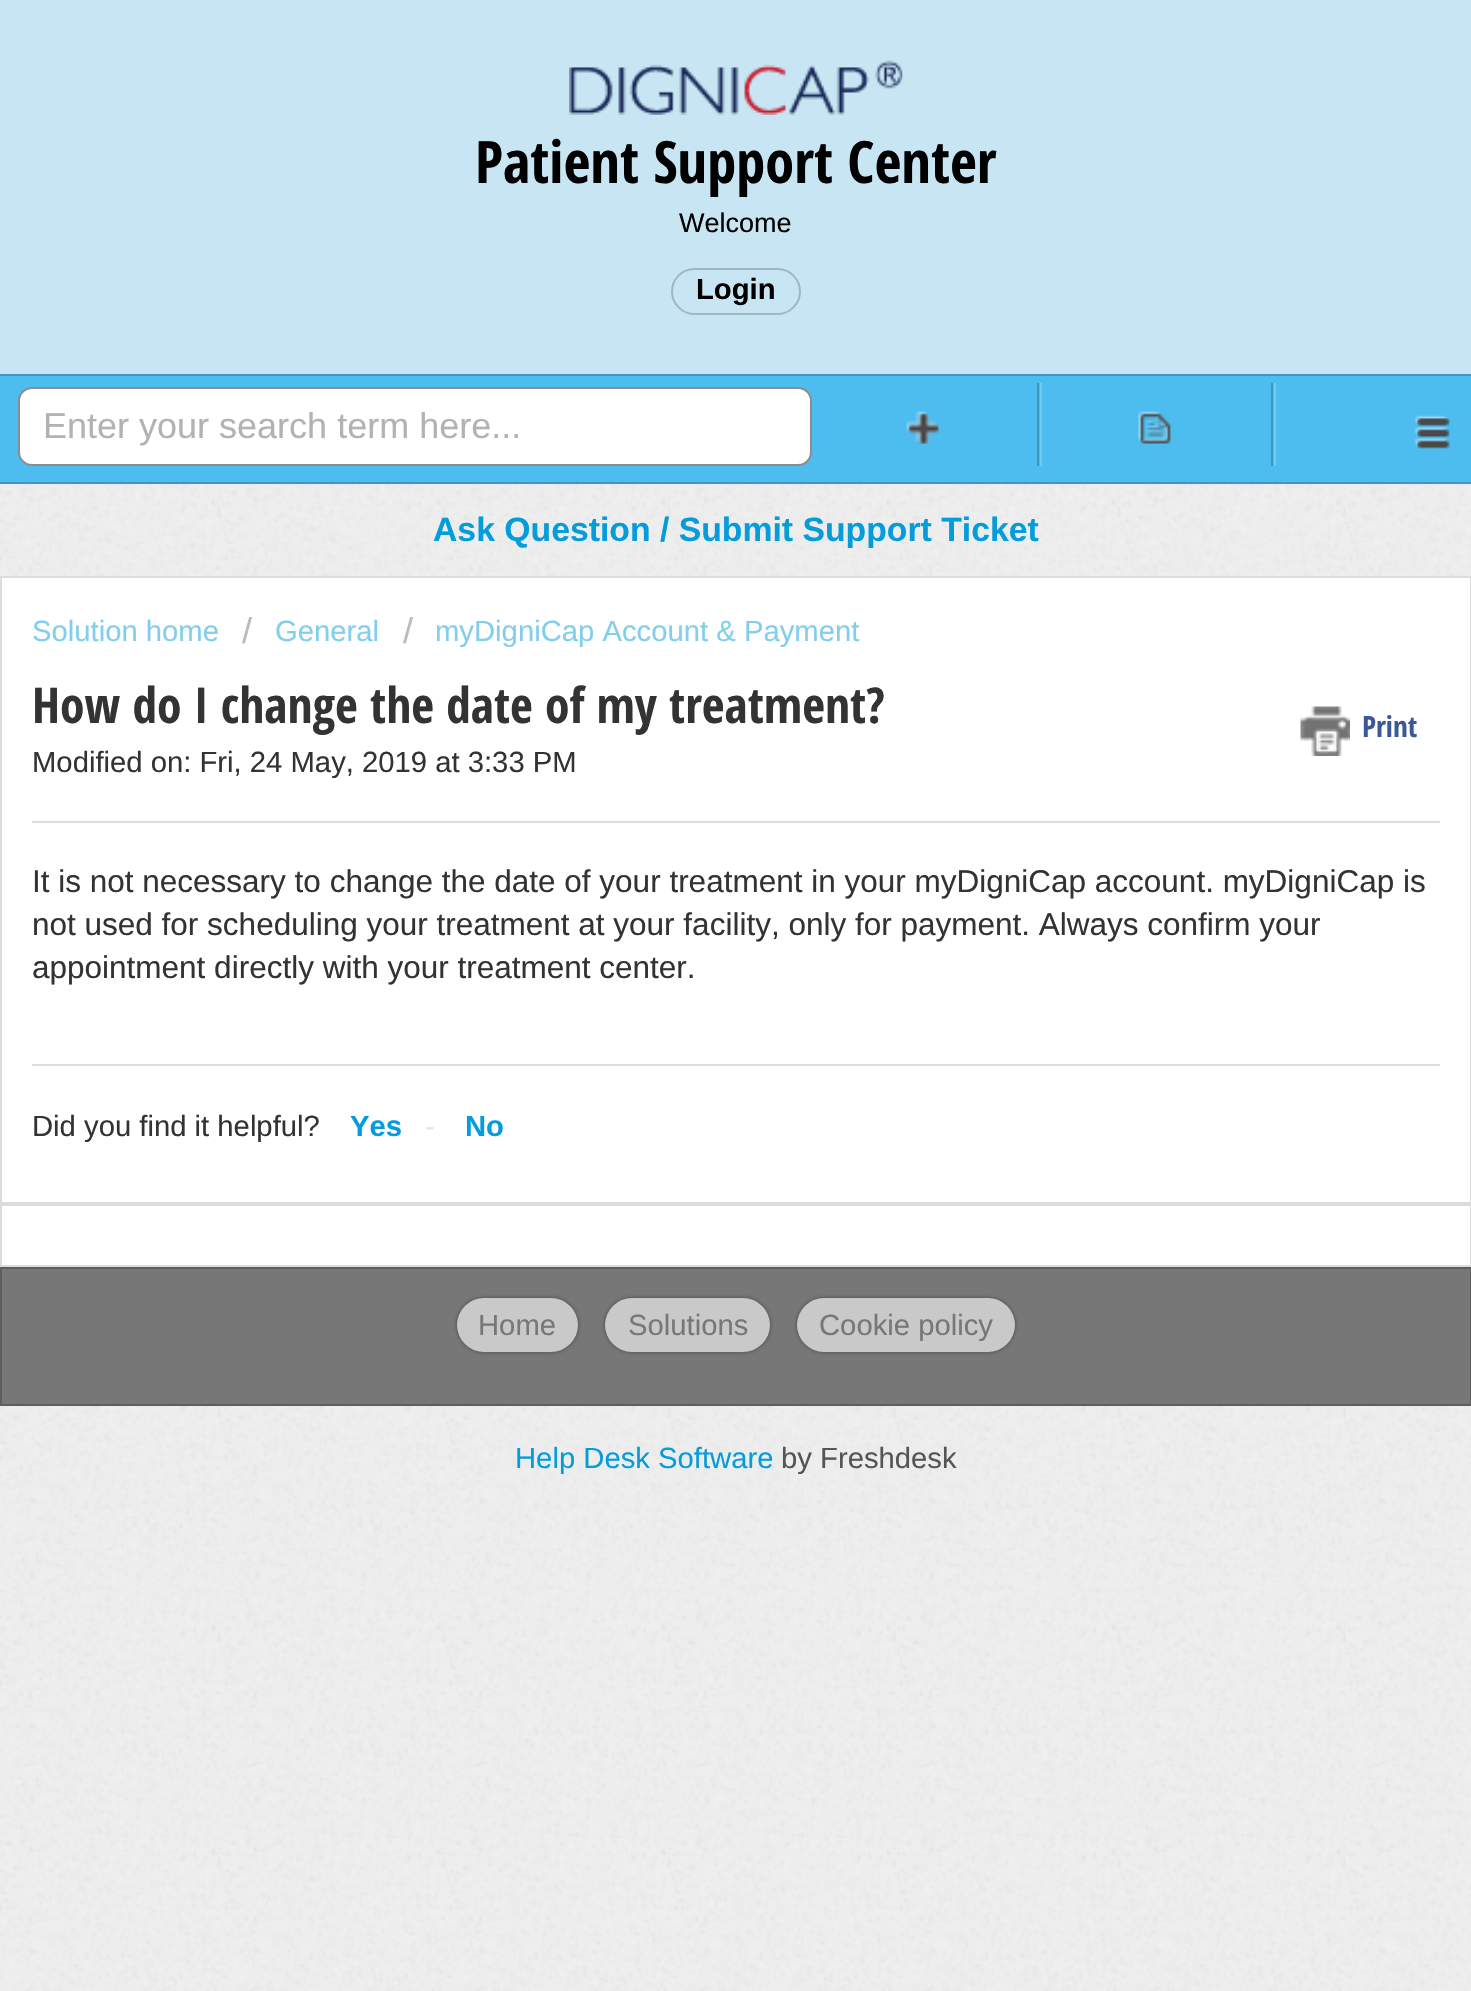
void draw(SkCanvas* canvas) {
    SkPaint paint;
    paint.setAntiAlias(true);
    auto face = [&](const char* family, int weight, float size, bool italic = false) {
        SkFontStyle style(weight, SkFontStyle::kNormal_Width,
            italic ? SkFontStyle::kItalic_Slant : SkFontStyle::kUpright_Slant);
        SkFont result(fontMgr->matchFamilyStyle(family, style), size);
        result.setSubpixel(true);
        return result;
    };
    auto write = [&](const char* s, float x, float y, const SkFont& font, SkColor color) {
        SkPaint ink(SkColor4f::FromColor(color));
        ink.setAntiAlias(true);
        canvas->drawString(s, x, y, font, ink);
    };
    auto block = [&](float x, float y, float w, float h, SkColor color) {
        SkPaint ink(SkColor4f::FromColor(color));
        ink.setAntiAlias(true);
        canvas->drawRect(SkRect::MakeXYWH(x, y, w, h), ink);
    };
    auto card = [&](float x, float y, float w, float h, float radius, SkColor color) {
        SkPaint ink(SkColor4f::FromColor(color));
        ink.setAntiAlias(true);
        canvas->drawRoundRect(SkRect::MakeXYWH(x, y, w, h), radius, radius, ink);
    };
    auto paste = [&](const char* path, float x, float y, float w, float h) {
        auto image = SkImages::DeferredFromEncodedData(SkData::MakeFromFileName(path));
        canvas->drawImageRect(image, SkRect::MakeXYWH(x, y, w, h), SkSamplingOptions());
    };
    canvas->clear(SkColorSetRGB(239, 239, 239));
    paste("pic1.png", 0, 484, 1471, 1507);
    block(0, 0, 1471, 374, SkColorSetRGB(199, 229, 242));
    paste("pic2.png", 569, 60, 334, 55);
    auto kFont1 = face("Open Sans Condensed", 700, 58.5f);
    write("Patient Support Center", 475, 183, kFont1, SK_ColorBLACK);
    auto kFont2 = face("Liberation Sans", 400, 27);
    write("Welcome", 679, 232, kFont2, SK_ColorBLACK);
    paint.setStyle(SkPaint::kStroke_Style);
    paint.setStrokeWidth(2);
    paint.setColor(SkColorSetRGB(159, 183, 194));
    canvas->drawRoundRect(SkRect::MakeXYWH(672, 269, 128, 45), 22.5f, 22.5f, paint);
    auto kFont3 = face("Liberation Sans", 700, 29.25f);
    write("Login", 696, 299, kFont3, SK_ColorBLACK);
    block(0, 376, 1471, 106, SkColorSetRGB(77, 189, 239));
    block(0, 374, 1471, 2, SkColorSetRGB(62, 151, 191));
    block(0, 482, 1471, 2, SkColorSetRGB(62, 151, 191));
    paste("pic3.png", 1414, 415, 36, 34);
    paint.setStyle(SkPaint::kFill_Style);
    paint.setColor(SK_ColorWHITE);
    canvas->drawRoundRect(SkRect::MakeXYWH(19, 388, 792, 77), 13, 13, paint);
    paint.setStyle(SkPaint::kStroke_Style);
    paint.setColor(SkColorSetRGB(140, 140, 140));
    canvas->drawRoundRect(SkRect::MakeXYWH(19, 388, 792, 77), 13, 13, paint);
    auto kFont4 = face("Liberation Sans", 400, 36);
    write("Enter your search term here...", 43, 438, kFont4, SkColorSetRGB(178, 178, 178));
    paint.setStyle(SkPaint::kFill_Style);
    paint.setColor(SkColorSetRGB(113, 202, 242));
    canvas->drawPath(SkPathBuilder().moveTo(810, 466).lineTo(1042, 466).lineTo(1042, 383).lineTo(1040, 383).lineTo(1040, 466).close().detach(), paint);
    block(1037, 383, 2, 83, SkColorSetRGB(62, 151, 191));
    paste("pic4.png", 906, 411, 33, 33);
    canvas->drawPath(SkPathBuilder().moveTo(1042, 466).lineTo(1276, 466).lineTo(1276, 383).lineTo(1274, 383).lineTo(1274, 466).close().detach(), paint);
    block(1271, 383, 2, 83, SkColorSetRGB(62, 151, 191));
    paste("pic5.png", 1138, 411, 33, 33);
    auto kFont5 = face("Liberation Sans", 700, 33.75f);
    write("Ask Question / Submit Support Ticket", 433, 541, kFont5, SkColorSetRGB(4, 156, 219));
    paint.setColor(SK_ColorWHITE);
    canvas->drawRect(SkRect::MakeXYWH(1, 577, 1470, 626), paint);
    paint.setStyle(SkPaint::kStroke_Style);
    paint.setColor(SkColorSetRGB(220, 220, 220));
    canvas->drawRect(SkRect::MakeXYWH(1, 577, 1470, 626), paint);
    auto kFont6 = face("Liberation Sans", 400, 29.25f);
    write("Solution home", 32, 641, kFont6, SkColorSetRGB(130, 206, 237));
    write("/", 242, 643, kFont4, SkColorSetRGB(187, 187, 187));
    write("General", 275, 641, kFont6, SkColorSetRGB(130, 206, 237));
    write("/", 403, 643, kFont4, SkColorSetRGB(187, 187, 187));
    write("myDigniCap Account & Payment", 435, 641, kFont6, SkColorSetRGB(130, 206, 237));
    auto kFont7 = face("Open Sans Condensed", 700, 49.5f);
    write("How do I change the date of my treatment?", 32, 723, kFont7, SkColorSetRGB(51, 51, 51));
    paste("pic6.png", 1300, 706, 50, 50);
    auto kFont8 = face("Open Sans Condensed", 700, 29.25f);
    write("Print", 1362, 737, kFont8, SkColorSetRGB(59, 89, 152));
    write("Modified on: Fri, 24 May, 2019 at 3:33 PM", 32, 772, kFont6, SkColorSetRGB(51, 51, 51));
    block(32, 821, 1408, 2, SkColorSetRGB(220, 220, 220));
    auto kFont9 = face("Liberation Sans", 400, 31.5f);
    write("It is not necessary to change the date of your treatment in your myDigniCap account. myDigniCap is", 32, 892, kFont9, SkColorSetRGB(51, 51, 51));
    write("not used for scheduling your treatment at your facility, only for payment. Always confirm your", 32, 935, kFont9, SkColorSetRGB(51, 51, 51));
    write("appointment directly with your treatment center.", 32, 978, kFont9, SkColorSetRGB(51, 51, 51));
    block(32, 1064, 1408, 2, SkColorSetRGB(220, 220, 220));
    write("Did you find it helpful?", 32, 1136, kFont6, SkColorSetRGB(51, 51, 51));
    write("Yes", 350, 1136, kFont3, SkColorSetRGB(4, 156, 219));
    write("-", 425, 1136, kFont6, SkColorSetRGB(229, 229, 229));
    write("No", 465, 1136, kFont3, SkColorSetRGB(4, 156, 219));
    paint.setStyle(SkPaint::kFill_Style);
    paint.setColor(SK_ColorWHITE);
    canvas->drawRect(SkRect::MakeXYWH(1, 1205, 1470, 61), paint);
    paint.setStyle(SkPaint::kStroke_Style);
    paint.setColor(SkColorSetRGB(220, 220, 220));
    canvas->drawRect(SkRect::MakeXYWH(1, 1205, 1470, 61), paint);
    paint.setStyle(SkPaint::kFill_Style);
    paint.setColor(SkColorSetRGB(119, 119, 119));
    canvas->drawRect(SkRect::MakeXYWH(1, 1268, 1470, 137), paint);
    paint.setStyle(SkPaint::kStroke_Style);
    paint.setColor(SkColorSetRGB(94, 94, 94));
    canvas->drawRect(SkRect::MakeXYWH(1, 1268, 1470, 137), paint);
    paint.setStyle(SkPaint::kFill_Style);
    paint.setColor(SkColorSetRGB(73, 73, 73));
    paint.setMaskFilter(SkMaskFilter::MakeBlur(kNormal_SkBlurStyle, 2));
    canvas->drawRoundRect(SkRect::MakeXYWH(457, 1298, 121, 54), 27, 27, paint);
    paint.setMaskFilter(nullptr);
    card(457, 1298, 121, 54, 27, SkColorSetRGB(201, 201, 201));
    write("Home", 478, 1335, kFont6, SkColorSetRGB(119, 119, 119));
    paint.setMaskFilter(SkMaskFilter::MakeBlur(kNormal_SkBlurStyle, 2));
    canvas->drawRoundRect(SkRect::MakeXYWH(605, 1298, 165, 54), 27, 27, paint);
    paint.setMaskFilter(nullptr);
    card(605, 1298, 165, 54, 27, SkColorSetRGB(201, 201, 201));
    write("Solutions", 628, 1335, kFont6, SkColorSetRGB(119, 119, 119));
    paint.setMaskFilter(SkMaskFilter::MakeBlur(kNormal_SkBlurStyle, 2));
    canvas->drawRoundRect(SkRect::MakeXYWH(797, 1298, 218, 54), 27, 27, paint);
    paint.setMaskFilter(nullptr);
    card(797, 1298, 218, 54, 27, SkColorSetRGB(201, 201, 201));
    write("Cookie policy", 819, 1335, kFont6, SkColorSetRGB(119, 119, 119));
    write("Help Desk Software", 515, 1468, kFont6, SkColorSetRGB(4, 156, 219));
    write("by Freshdesk", 781, 1468, kFont6, SkColorSetRGB(85, 85, 85));
}
